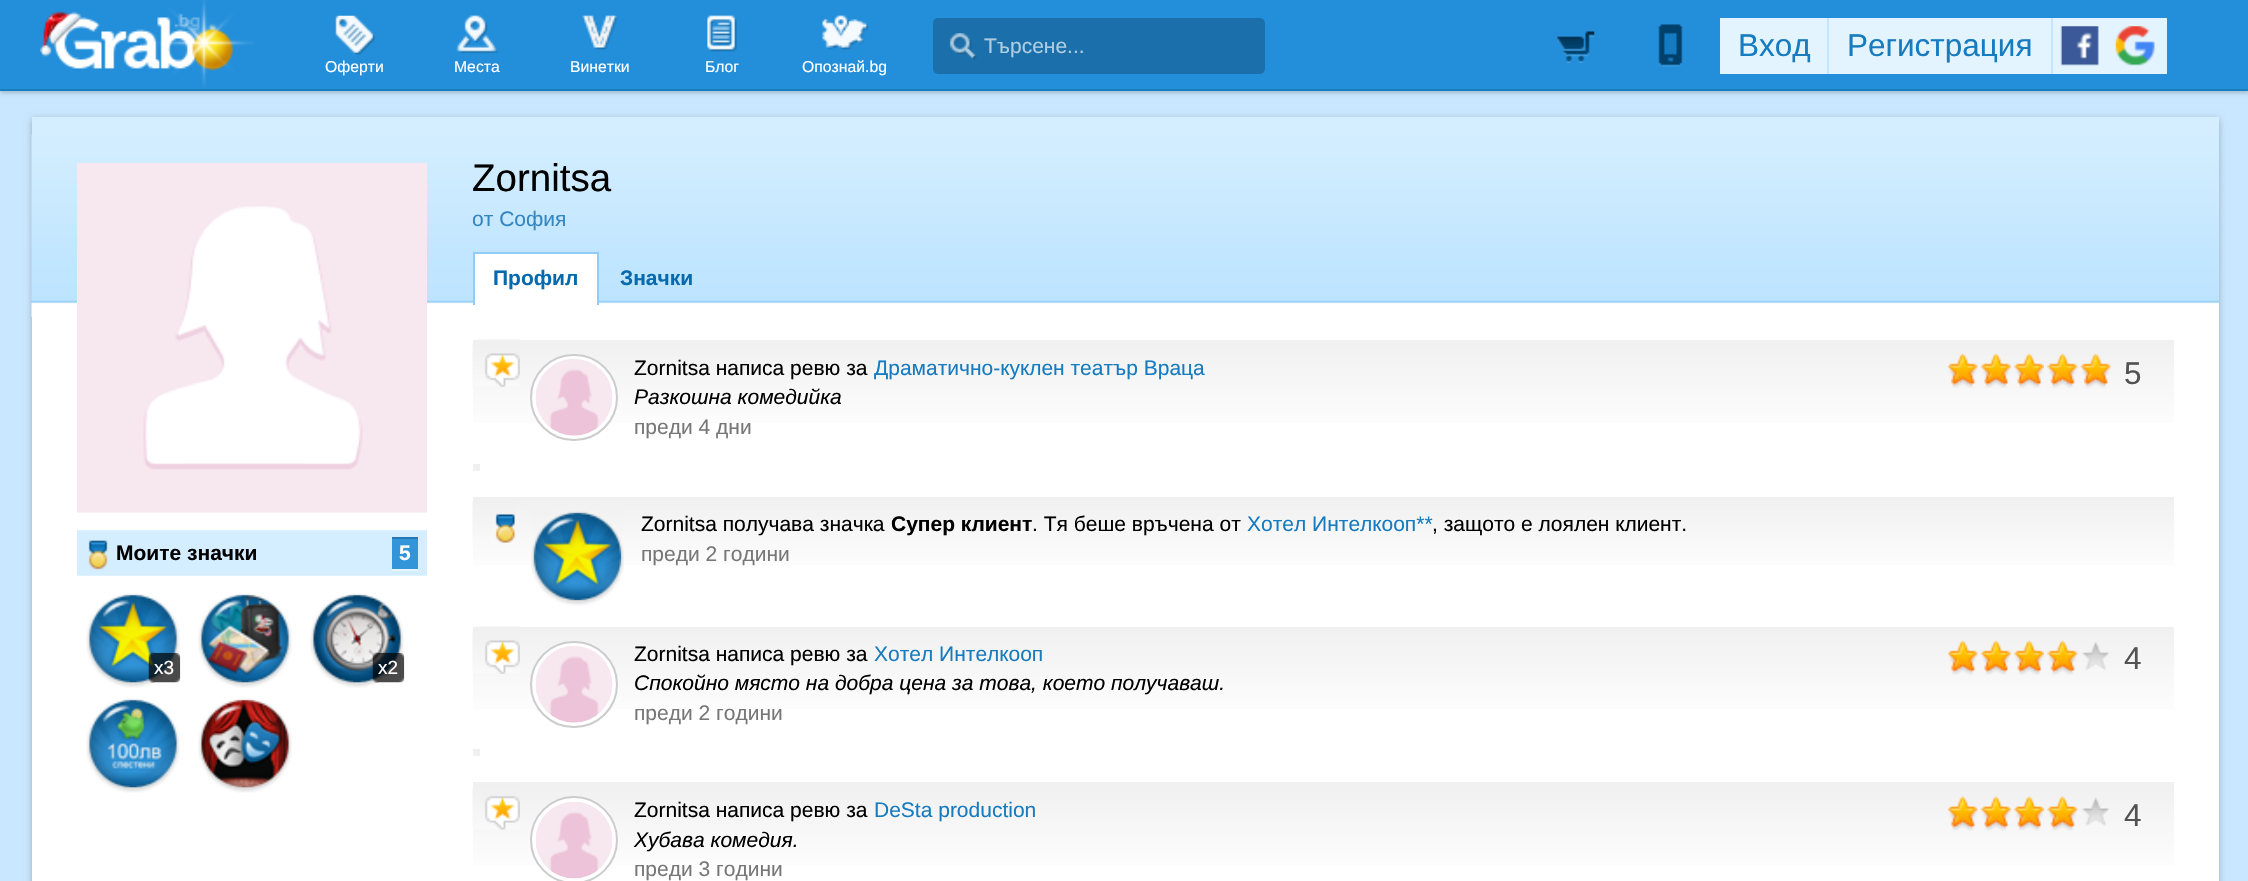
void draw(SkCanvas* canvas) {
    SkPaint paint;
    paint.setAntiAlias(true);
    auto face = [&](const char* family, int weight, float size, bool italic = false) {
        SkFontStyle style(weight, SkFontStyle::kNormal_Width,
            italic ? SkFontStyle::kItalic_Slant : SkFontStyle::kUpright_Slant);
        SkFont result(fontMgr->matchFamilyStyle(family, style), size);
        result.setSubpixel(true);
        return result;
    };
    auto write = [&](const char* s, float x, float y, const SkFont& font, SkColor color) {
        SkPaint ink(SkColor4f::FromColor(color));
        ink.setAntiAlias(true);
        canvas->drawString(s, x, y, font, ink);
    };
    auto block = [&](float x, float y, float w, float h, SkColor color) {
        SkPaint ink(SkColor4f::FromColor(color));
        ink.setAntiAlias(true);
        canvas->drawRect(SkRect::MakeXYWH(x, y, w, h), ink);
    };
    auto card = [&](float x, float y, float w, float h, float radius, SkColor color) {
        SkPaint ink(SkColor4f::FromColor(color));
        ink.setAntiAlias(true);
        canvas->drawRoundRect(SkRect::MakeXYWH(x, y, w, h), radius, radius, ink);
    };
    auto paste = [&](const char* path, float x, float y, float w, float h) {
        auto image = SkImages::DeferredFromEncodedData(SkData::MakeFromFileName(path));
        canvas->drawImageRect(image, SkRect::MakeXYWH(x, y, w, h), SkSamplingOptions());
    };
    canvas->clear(SkColorSetRGB(201, 231, 255));
    paint.setColor(SkColorSetARGB(51, 0, 0, 0));
    paint.setMaskFilter(SkMaskFilter::MakeBlur(kNormal_SkBlurStyle, 2));
    canvas->drawRect(SkRect::MakeXYWH(0, 2, 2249, 91), paint);
    paint.setMaskFilter(nullptr);
    block(0, 0, 2248, 89, SkColorSetRGB(35, 143, 219));
    block(0, 89, 2248, 2, SkColorSetRGB(25, 125, 193));
    paste("pic1.png", 40, 0, 215, 88);
    card(933, 18, 332, 56, 5, SkColorSetRGB(27, 112, 171));
    paste("pic2.png", 950, 33, 27, 27);
    auto kFont1 = face("Liberation Sans", 400, 21);
    write("Търсене...", 984, 53, kFont1, SkColorSetRGB(175, 205, 226));
    paste("pic3.png", 335, 15, 40, 40);
    auto kFont2 = face("Liberation Sans", 400, 15.75f);
    write("Оферти", 325, 72, kFont2, SK_ColorWHITE);
    paste("pic4.png", 456, 15, 42, 39);
    write("Места", 454, 72, kFont2, SK_ColorWHITE);
    paste("pic5.png", 582, 15, 36, 35);
    write("Винетки", 570, 72, kFont2, SK_ColorWHITE);
    paste("pic6.png", 707, 15, 30, 37);
    write("Блог", 705, 72, kFont2, SK_ColorWHITE);
    paste("pic7.png", 822, 15, 46, 35);
    write("Опознай.bg", 802, 72, kFont2, SK_ColorWHITE);
    paste("pic8.png", 1557, 31, 38, 32);
    paste("pic9.png", 1658, 24, 25, 43);
    block(1827, 18, 2, 56, SkColorSetRGB(194, 230, 253));
    block(2051, 18, 2, 56, SkColorSetRGB(194, 230, 253));
    block(2053, 18, 114, 56, SkColorSetRGB(227, 244, 255));
    paste("pic10.png", 2115, 26, 40, 40);
    block(1720, 18, 107, 56, SkColorSetRGB(227, 244, 255));
    auto kFont3 = face("Liberation Sans", 400, 31.5f);
    write("Вход", 1738, 56, kFont3, SkColorSetRGB(22, 123, 191));
    block(1829, 18, 222, 56, SkColorSetRGB(227, 244, 255));
    write("Регистрация", 1847, 56, kFont3, SkColorSetRGB(22, 123, 191));
    paste("pic11.png", 2060, 26, 39, 40);
    paint.setColor(SkColorSetARGB(64, 0, 0, 0));
    paint.setMaskFilter(SkMaskFilter::MakeBlur(kNormal_SkBlurStyle, 3.5f));
    canvas->drawRect(SkRect::MakeXYWH(32, 119, 2187, 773), paint);
    paint.setMaskFilter(nullptr);
    block(32, 117, 2187, 18, SkColorSetRGB(212, 238, 255));
    block(32, 316, 2187, 565, SK_ColorWHITE);
    paste("pic12.png", 31, 135, 2188, 182);
    paste("pic13.png", 77, 163, 350, 350);
    paste("pic14.png", 77, 530, 350, 46);
    auto kFont4 = face("Liberation Sans", 700, 21);
    write("Моите значки", 116, 560, kFont4, SK_ColorBLACK);
    block(392, 539, 26, 30, SkColorSetRGB(50, 149, 218));
    block(392, 537, 26, 2, SkColorSetRGB(40, 120, 176));
    block(392, 569, 26, 2, SkColorSetRGB(232, 246, 255));
    write("5", 399, 560, kFont4, SK_ColorWHITE);
    paste("pic16.png", 89, 595, 88, 88);
    paste("pic15.png", 86, 593, 94, 95);
    paste("pic17.png", 148, 652, 6, 31);
    paste("pic18.png", 154, 652, 27, 31);
    auto kFont5 = face("Liberation Sans", 400, 19);
    write("x3", 154, 674, kFont5, SK_ColorWHITE);
    paste("pic20.png", 201, 595, 88, 88);
    paste("pic19.png", 198, 593, 94, 95);
    paste("pic22.png", 313, 595, 88, 88);
    paste("pic21.png", 310, 593, 94, 95);
    paste("pic23.png", 372, 652, 6, 31);
    paste("pic24.png", 378, 652, 27, 31);
    write("x2", 378, 674, kFont5, SK_ColorWHITE);
    paste("pic26.png", 89, 700, 88, 88);
    paste("pic25.png", 86, 698, 94, 95);
    paste("pic28.png", 201, 700, 88, 88);
    paste("pic27.png", 198, 698, 94, 95);
    auto kFont6 = face("Liberation Sans", 400, 38.5f);
    write("Zornitsa", 472, 191, kFont6, SK_ColorBLACK);
    canvas->save();
    canvas->clipRect(SkRect::MakeXYWH(473, 207, 1701, 26));
    write("от София", 472, 226, kFont1, SkColorSetRGB(51, 134, 192));
    canvas->restore();
    block(475, 254, 122, 50, SK_ColorWHITE);
    block(473, 252, 126, 2, SkColorSetRGB(144, 204, 245));
    block(597, 252, 2, 53, SkColorSetRGB(144, 204, 245));
    block(473, 252, 2, 53, SkColorSetRGB(144, 204, 245));
    write("Профил", 493, 285, kFont4, SkColorSetRGB(7, 106, 174));
    write("Значки", 620, 285, kFont4, SkColorSetRGB(7, 106, 174));
    {
        const SkColor colors[] = {SkColorSetRGB(240, 240, 240), SK_ColorWHITE};
        const float stops[] = {0, 0.66f};
        const SkPoint ends[] = {{1323, 339}, {1323, 492}};
        paint.setShader(SkGradientShader::MakeLinear(ends, colors, stops, 2, SkTileMode::kClamp));
        paint.setAlpha(255);
    }
    canvas->drawRect(SkRect::MakeXYWH(473, 340, 1701, 83), paint);
    paste("pic29.png", 472, 339, 48, 48);
    block(473, 340, 7, 7, SkColorSetRGB(240, 240, 240));
    paint.setShader(nullptr);
    paint.setColor(SK_ColorWHITE);
    canvas->drawRoundRect(SkRect::MakeXYWH(531, 355, 86, 85), 42.5f, 42.5f, paint);
    paint.setStyle(SkPaint::kStroke_Style);
    paint.setStrokeWidth(2);
    paint.setColor(SkColorSetRGB(204, 204, 204));
    canvas->drawRoundRect(SkRect::MakeXYWH(531, 355, 86, 85), 42.5f, 42.5f, paint);
    paste("pic30.png", 535, 359, 78, 77);
    write("Zornitsa написа ревю за", 634, 375, kFont1, SK_ColorBLACK);
    write("Драматично-куклен театър Враца", 874, 375, kFont1, SkColorSetRGB(22, 123, 191));
    paste("pic31.png", 1947, 353, 31, 35);
    paste("pic32.png", 1981, 353, 30, 35);
    paste("pic33.png", 2014, 353, 30, 35);
    paste("pic34.png", 2047, 353, 31, 35);
    paste("pic35.png", 2080, 353, 31, 35);
    write("5", 2124, 384, kFont3, SkColorSetRGB(82, 82, 82));
    auto kFont7 = face("Liberation Sans", 400, 21, true);
    write("Разкошна комедийка", 634, 404, kFont7, SK_ColorBLACK);
    write("преди 4 дни", 634, 434, kFont1, SkColorSetRGB(119, 119, 119));
    block(473, 464, 7, 7, SkColorSetRGB(240, 240, 240));
    paint.setStyle(SkPaint::kFill_Style);
    {
        const SkColor colors[] = {SkColorSetRGB(240, 240, 240), SK_ColorWHITE};
        const float stops[] = {0, 0.66f};
        const SkPoint ends[] = {{1323, 497}, {1323, 621}};
        paint.setShader(SkGradientShader::MakeLinear(ends, colors, stops, 2, SkTileMode::kClamp));
        paint.setAlpha(255);
    }
    canvas->drawRect(SkRect::MakeXYWH(473, 497, 1701, 68), paint);
    paste("pic36.png", 472, 497, 43, 46);
    block(473, 497, 7, 7, SkColorSetRGB(240, 240, 240));
    paste("pic38.png", 533, 512, 89, 89);
    paste("pic37.png", 531, 511, 93, 95);
    write("Zornitsa получава значка", 641, 531, kFont1, SK_ColorBLACK);
    write("Супер клиент", 891, 531, kFont4, SK_ColorBLACK);
    write(". Тя беше връчена от", 1032, 531, kFont1, SK_ColorBLACK);
    write("Хотел Интелкооп**", 1247, 531, kFont1, SkColorSetRGB(22, 123, 191));
    write(", защото е лоялен клиент.", 1432, 531, kFont1, SK_ColorBLACK);
    write("преди 2 години", 641, 561, kFont1, SkColorSetRGB(119, 119, 119));
    {
        const SkColor colors[] = {SkColorSetRGB(240, 240, 240), SK_ColorWHITE};
        const float stops[] = {0, 0.66f};
        const SkPoint ends[] = {{1323, 626}, {1323, 777}};
        paint.setShader(SkGradientShader::MakeLinear(ends, colors, stops, 2, SkTileMode::kClamp));
        paint.setAlpha(255);
    }
    canvas->drawRect(SkRect::MakeXYWH(473, 627, 1701, 82), paint);
    paste("pic29.png", 472, 626, 48, 48);
    block(473, 627, 7, 7, SkColorSetRGB(240, 240, 240));
    paint.setShader(nullptr);
    paint.setColor(SK_ColorWHITE);
    canvas->drawRoundRect(SkRect::MakeXYWH(531, 642, 86, 85), 42.5f, 42.5f, paint);
    paint.setStyle(SkPaint::kStroke_Style);
    paint.setColor(SkColorSetRGB(204, 204, 204));
    canvas->drawRoundRect(SkRect::MakeXYWH(531, 642, 86, 85), 42.5f, 42.5f, paint);
    paste("pic39.png", 535, 646, 78, 77);
    write("Zornitsa написа ревю за", 634, 661, kFont1, SK_ColorBLACK);
    write("Хотел Интелкооп", 874, 661, kFont1, SkColorSetRGB(22, 123, 191));
    paste("pic40.png", 1947, 640, 31, 35);
    paste("pic41.png", 1981, 640, 30, 35);
    paste("pic42.png", 2014, 640, 30, 35);
    paste("pic43.png", 2047, 640, 31, 35);
    paste("pic44.png", 2082, 642, 27, 29);
    write("4", 2124, 669, kFont3, SkColorSetRGB(82, 82, 82));
    write("Спокойно място на добра цена за това, което получаваш.", 634, 690, kFont7, SK_ColorBLACK);
    write("преди 2 години", 634, 720, kFont1, SkColorSetRGB(119, 119, 119));
    block(473, 749, 7, 7, SkColorSetRGB(240, 240, 240));
    paint.setStyle(SkPaint::kFill_Style);
    {
        const SkColor colors[] = {SkColorSetRGB(240, 240, 240), SK_ColorWHITE};
        const float stops[] = {0, 0.66f};
        const SkPoint ends[] = {{1323, 782}, {1323, 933}};
        paint.setShader(SkGradientShader::MakeLinear(ends, colors, stops, 2, SkTileMode::kClamp));
        paint.setAlpha(255);
    }
    canvas->drawRect(SkRect::MakeXYWH(473, 782, 1701, 83), paint);
    paste("pic45.png", 472, 782, 48, 48);
    block(473, 782, 7, 7, SkColorSetRGB(240, 240, 240));
    paint.setShader(nullptr);
    paint.setColor(SK_ColorWHITE);
    canvas->drawCircle(574, 840, 43, paint);
    paint.setStyle(SkPaint::kStroke_Style);
    paint.setColor(SkColorSetRGB(204, 204, 204));
    canvas->drawCircle(574, 840, 43, paint);
    paste("pic46.png", 535, 801, 78, 78);
    write("Zornitsa написа ревю за", 634, 817, kFont1, SK_ColorBLACK);
    write("DeSta production", 874, 817, kFont1, SkColorSetRGB(22, 123, 191));
    paste("pic47.png", 1947, 796, 31, 35);
    paste("pic48.png", 1981, 796, 30, 35);
    paste("pic49.png", 2014, 796, 30, 35);
    paste("pic50.png", 2047, 796, 31, 35);
    paste("pic51.png", 2082, 797, 27, 29);
    write("4", 2124, 826, kFont3, SkColorSetRGB(82, 82, 82));
    write("Хубава комедия.", 634, 847, kFont7, SK_ColorBLACK);
    write("преди 3 години", 634, 876, kFont1, SkColorSetRGB(119, 119, 119));
}
